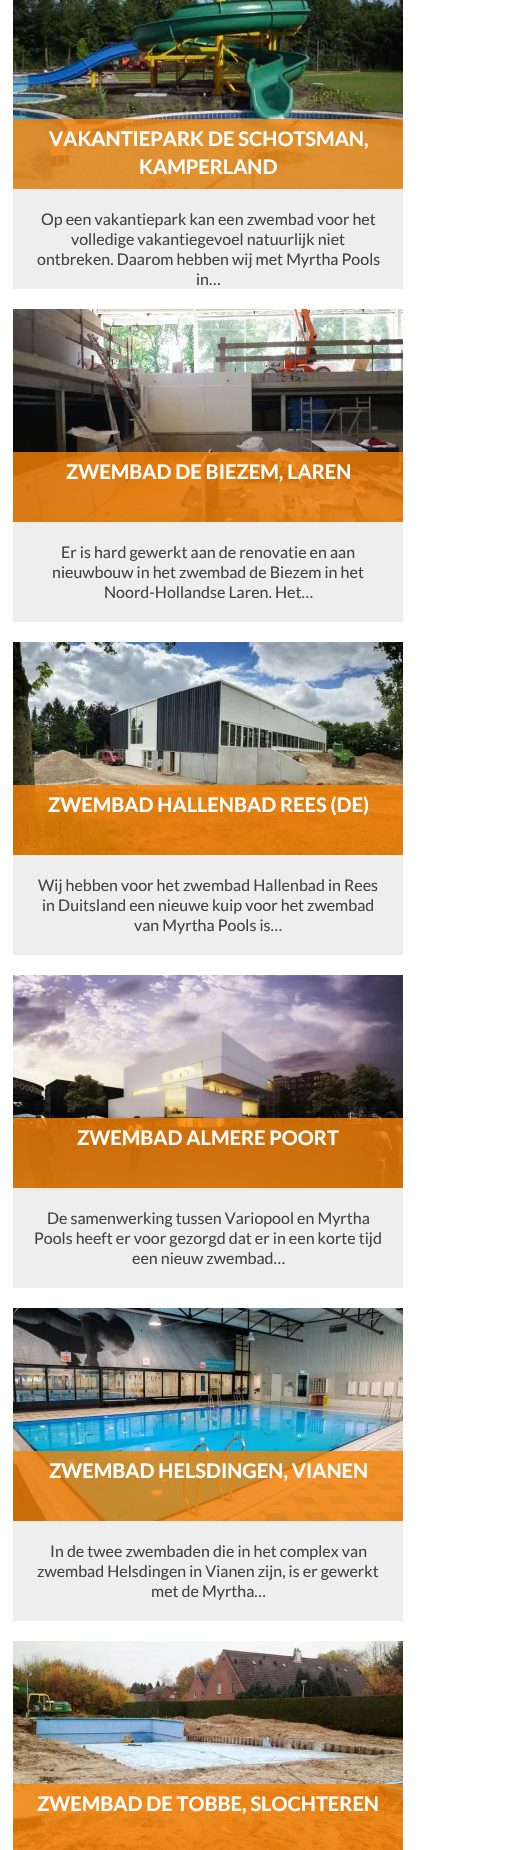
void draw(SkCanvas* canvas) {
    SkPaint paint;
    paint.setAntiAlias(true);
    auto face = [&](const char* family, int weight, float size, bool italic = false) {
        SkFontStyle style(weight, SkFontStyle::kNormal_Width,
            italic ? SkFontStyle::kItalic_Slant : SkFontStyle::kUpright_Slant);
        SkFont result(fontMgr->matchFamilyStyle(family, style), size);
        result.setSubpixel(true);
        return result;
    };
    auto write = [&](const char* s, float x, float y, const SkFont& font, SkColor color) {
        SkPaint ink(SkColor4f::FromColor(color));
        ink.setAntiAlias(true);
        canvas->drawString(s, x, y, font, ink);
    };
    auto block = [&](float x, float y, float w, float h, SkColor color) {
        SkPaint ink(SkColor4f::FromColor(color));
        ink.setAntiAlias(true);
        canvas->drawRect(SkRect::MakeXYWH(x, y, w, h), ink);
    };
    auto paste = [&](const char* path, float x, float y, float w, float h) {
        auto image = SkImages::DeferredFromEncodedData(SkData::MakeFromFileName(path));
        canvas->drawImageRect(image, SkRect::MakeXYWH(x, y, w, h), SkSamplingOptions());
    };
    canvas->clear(SK_ColorWHITE);
    block(13, 189, 390, 100, SkColorSetRGB(238, 238, 238));
    paste("pic1.png", 13, 0, 390, 189);
    block(13, 119, 390, 70, SkColorSetARGB(204, 248, 130, 4));
    auto kFont1 = face("Lato", 700, 20);
    write("VAKANTIEPARK DE SCHOTSMAN,", 49, 146, kFont1, SK_ColorWHITE);
    write("KAMPERLAND", 139, 174, kFont1, SK_ColorWHITE);
    auto kFont2 = face("Lato", 400, 16);
    write("Op een vakantiepark kan een zwembad voor het", 41, 225, kFont2, SkColorSetRGB(68, 68, 68));
    write("volledige vakantiegevoel natuurlijk niet", 71, 245, kFont2, SkColorSetRGB(68, 68, 68));
    write("ontbreken. Daarom hebben wij met Myrtha Pools", 37, 265, kFont2, SkColorSetRGB(68, 68, 68));
    write("in…", 196, 285, kFont2, SkColorSetRGB(68, 68, 68));
    block(13, 522, 390, 100, SkColorSetRGB(238, 238, 238));
    paste("pic2.png", 13, 309, 390, 213);
    block(13, 452, 390, 70, SkColorSetARGB(204, 248, 130, 4));
    write("ZWEMBAD DE BIEZEM, LAREN", 66, 479, kFont1, SK_ColorWHITE);
    write("Er is hard gewerkt aan de renovatie en aan", 61, 558, kFont2, SkColorSetRGB(68, 68, 68));
    write("nieuwbouw in het zwembad de Biezem in het", 52, 578, kFont2, SkColorSetRGB(68, 68, 68));
    write("Noord-Hollandse Laren. Het…", 104, 598, kFont2, SkColorSetRGB(68, 68, 68));
    block(13, 855, 390, 100, SkColorSetRGB(238, 238, 238));
    paste("pic3.png", 13, 642, 390, 213);
    block(13, 785, 390, 70, SkColorSetARGB(204, 248, 130, 4));
    write("ZWEMBAD HALLENBAD REES (DE)", 48, 812, kFont1, SK_ColorWHITE);
    write("Wij hebben voor het zwembad Hallenbad in Rees", 38, 891, kFont2, SkColorSetRGB(68, 68, 68));
    write("in Duitsland een nieuwe kuip voor het zwembad", 42, 911, kFont2, SkColorSetRGB(68, 68, 68));
    write("van Myrtha Pools is…", 134, 931, kFont2, SkColorSetRGB(68, 68, 68));
    block(13, 1188, 390, 100, SkColorSetRGB(238, 238, 238));
    paste("pic4.png", 13, 975, 390, 213);
    block(13, 1118, 390, 70, SkColorSetARGB(204, 248, 130, 4));
    write("ZWEMBAD ALMERE POORT", 77, 1145, kFont1, SK_ColorWHITE);
    write("De samenwerking tussen Variopool en Myrtha", 47, 1224, kFont2, SkColorSetRGB(68, 68, 68));
    write("Pools heeft er voor gezorgd dat er in een korte tijd", 34, 1244, kFont2, SkColorSetRGB(68, 68, 68));
    write("een nieuw zwembad…", 132, 1264, kFont2, SkColorSetRGB(68, 68, 68));
    block(13, 1521, 390, 100, SkColorSetRGB(238, 238, 238));
    paste("pic5.png", 13, 1308, 390, 213);
    block(13, 1451, 390, 70, SkColorSetARGB(204, 248, 130, 4));
    write("ZWEMBAD HELSDINGEN, VIANEN", 49, 1478, kFont1, SK_ColorWHITE);
    write("In de twee zwembaden die in het complex van", 50, 1557, kFont2, SkColorSetRGB(68, 68, 68));
    write("zwembad Helsdingen in Vianen zijn, is er gewerkt", 37, 1577, kFont2, SkColorSetRGB(68, 68, 68));
    write("met de Myrtha…", 151, 1597, kFont2, SkColorSetRGB(68, 68, 68));
    paste("pic6.png", 13, 1641, 390, 209);
    block(13, 1784, 390, 66, SkColorSetARGB(204, 248, 130, 4));
    write("ZWEMBAD DE TOBBE, SLOCHTEREN", 37, 1811, kFont1, SK_ColorWHITE);
}
